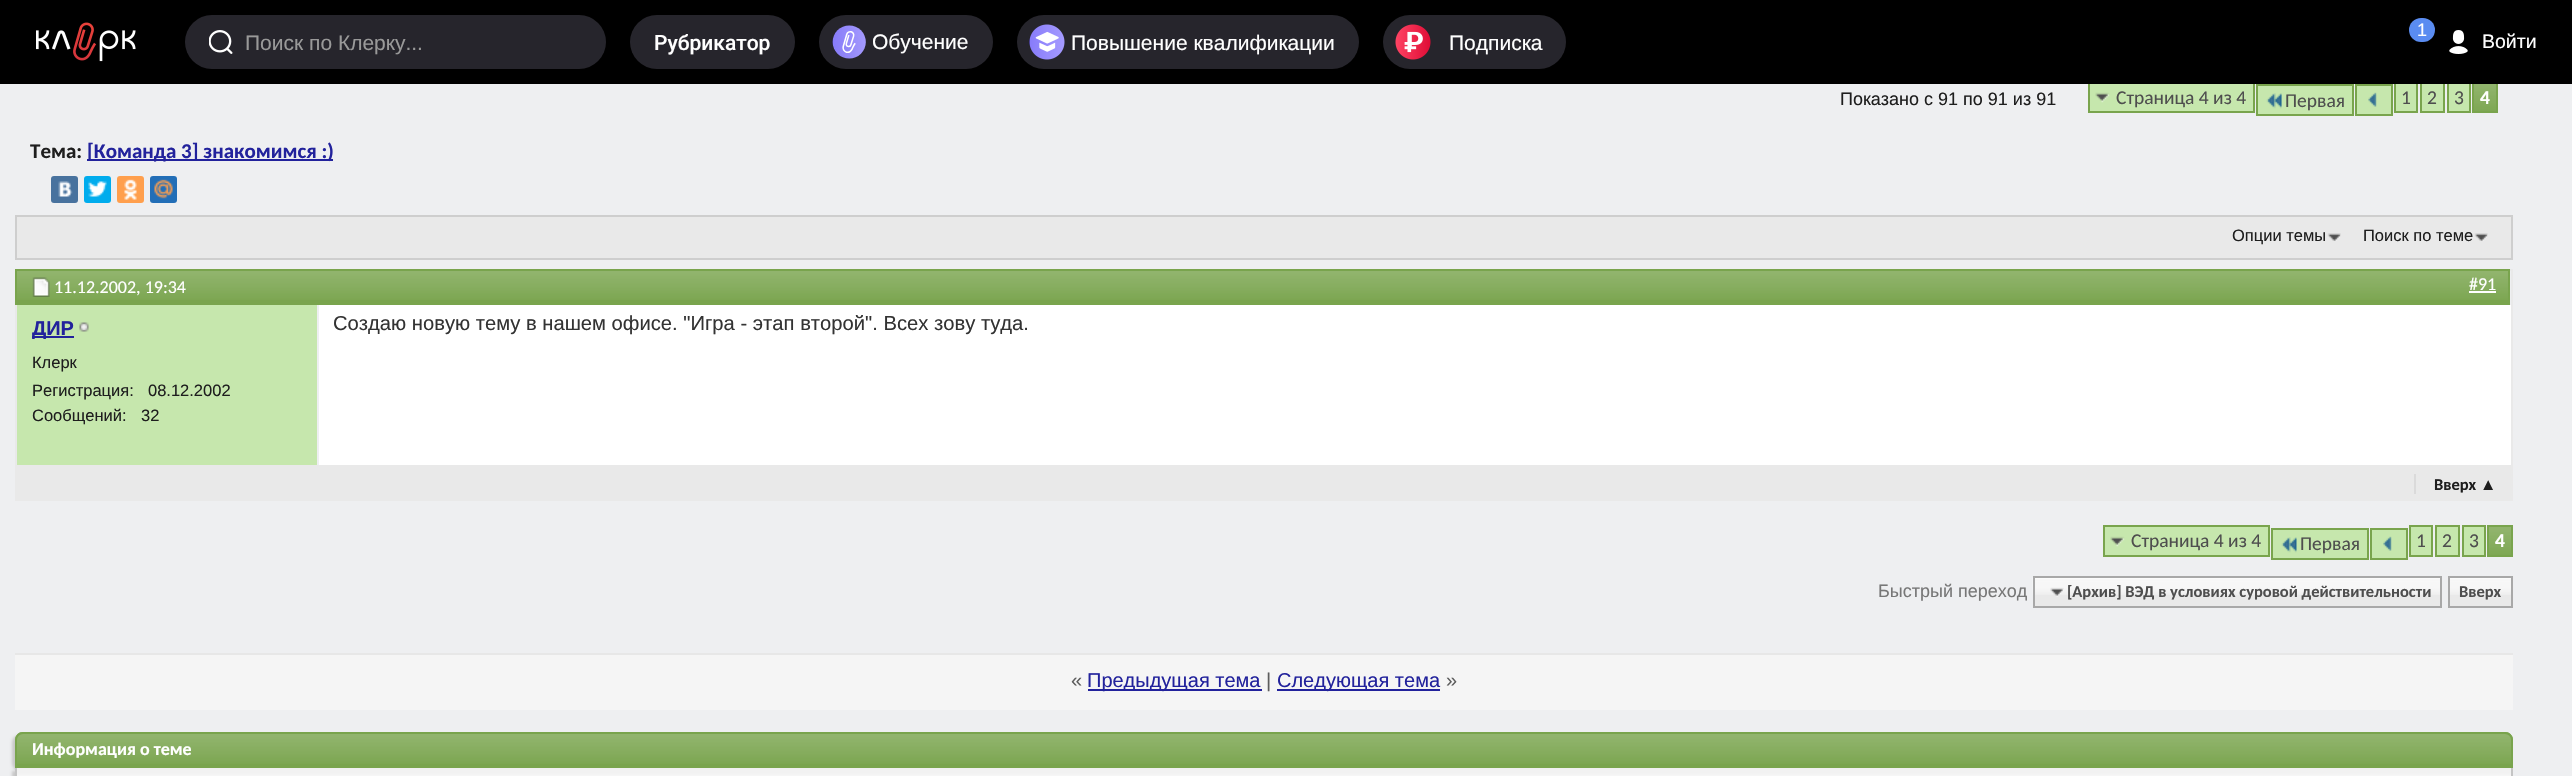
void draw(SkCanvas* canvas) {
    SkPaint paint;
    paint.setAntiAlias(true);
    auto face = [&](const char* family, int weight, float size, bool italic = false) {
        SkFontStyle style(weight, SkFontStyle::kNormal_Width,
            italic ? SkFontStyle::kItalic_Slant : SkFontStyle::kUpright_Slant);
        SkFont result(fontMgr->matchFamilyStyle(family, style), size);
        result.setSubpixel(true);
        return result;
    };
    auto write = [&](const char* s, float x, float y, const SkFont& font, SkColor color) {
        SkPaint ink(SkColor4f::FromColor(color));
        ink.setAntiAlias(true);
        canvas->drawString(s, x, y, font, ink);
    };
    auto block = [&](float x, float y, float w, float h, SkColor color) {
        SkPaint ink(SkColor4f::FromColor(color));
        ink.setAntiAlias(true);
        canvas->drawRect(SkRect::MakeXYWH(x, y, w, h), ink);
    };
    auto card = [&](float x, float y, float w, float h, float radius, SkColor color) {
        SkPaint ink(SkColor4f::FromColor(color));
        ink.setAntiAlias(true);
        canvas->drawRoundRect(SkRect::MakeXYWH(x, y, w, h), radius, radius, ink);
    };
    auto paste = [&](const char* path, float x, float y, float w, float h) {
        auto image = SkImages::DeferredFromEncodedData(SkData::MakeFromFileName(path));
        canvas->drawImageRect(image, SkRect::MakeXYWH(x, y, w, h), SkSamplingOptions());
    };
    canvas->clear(SkColorSetRGB(238, 239, 241));
    block(2090, 84, 163, 27, SkColorSetRGB(198, 231, 173));
    paste("pic7.png", 2095, 92, 15, 11);
    paint.setStyle(SkPaint::kStroke_Style);
    paint.setStrokeWidth(2);
    paint.setColor(SkColorSetRGB(121, 164, 77));
    canvas->drawRect(SkRect::MakeXYWH(2089, 82, 165, 30), paint);
    block(2396, 84, 20, 27, SkColorSetRGB(198, 231, 173));
    canvas->drawRect(SkRect::MakeXYWH(2395, 82, 22, 30), paint);
    block(2422, 84, 21, 27, SkColorSetRGB(198, 231, 173));
    canvas->drawRect(SkRect::MakeXYWH(2421, 82, 23, 30), paint);
    block(2449, 84, 20, 27, SkColorSetRGB(198, 231, 173));
    canvas->drawRect(SkRect::MakeXYWH(2448, 82, 22, 30), paint);
    block(2474, 84, 22, 27, SkColorSetRGB(121, 164, 77));
    paste("pic10.png", 2474, 84, 22, 27);
    canvas->drawRect(SkRect::MakeXYWH(2473, 82, 24, 30), paint);
    block(0, 0, 2572, 84, SK_ColorBLACK);
    paste("pic1.png", 36, 22, 100, 40);
    card(185, 15, 421, 54, 27, SkColorSetRGB(38, 37, 44));
    paste("pic2.png", 209, 30, 24, 24);
    auto kFont1 = face("Liberation Sans", 400, 21);
    write("Поиск по Клерку...", 245, 50, kFont1, SkColorSetRGB(153, 153, 153));
    card(630, 15, 165, 54, 27, SkColorSetRGB(38, 37, 44));
    auto kFont2 = face("Roboto", 500, 21);
    write("Рубрикатор", 654, 50, kFont2, SK_ColorWHITE);
    card(819, 15, 174, 54, 27, SkColorSetRGB(38, 37, 44));
    paste("pic3.png", 832, 25, 34, 34);
    write("Обучение", 872, 49, kFont1, SK_ColorWHITE);
    card(1017, 15, 342, 54, 27, SkColorSetRGB(38, 37, 44));
    paste("pic4.png", 1029, 24, 36, 36);
    write("Повышение квалификации", 1071, 50, kFont1, SK_ColorWHITE);
    card(1383, 15, 183, 54, 27, SkColorSetRGB(38, 37, 44));
    paste("pic5.png", 1395, 24, 36, 36);
    write("Подписка", 1449, 50, kFont1, SK_ColorWHITE);
    card(2409, 18, 26, 24, 12, SkColorSetRGB(90, 140, 241));
    auto kFont3 = face("Liberation Sans", 400, 18);
    write("1", 2417, 36, kFont3, SK_ColorWHITE);
    paste("pic6.png", 2449, 30, 19, 24);
    auto kFont4 = face("Liberation Sans", 400, 19.5f);
    write("Войти", 2482, 48, kFont4, SK_ColorWHITE);
    write("Показано с 91 по 91 из 91", 1840, 105, kFont3, SkColorSetRGB(30, 30, 30));
    auto kFont5 = face("Carlito", 400, 19.5f);
    write("Страница 4 из 4", 2116, 104, kFont5, SkColorSetRGB(78, 78, 78));
    block(2258, 86, 94, 28, SkColorSetRGB(198, 231, 173));
    paste("pic8.png", 2266, 93, 16, 16);
    write("Первая", 2285, 107, kFont5, SkColorSetRGB(78, 78, 78));
    block(2256, 84, 98, 2, SkColorSetRGB(121, 164, 77));
    block(2256, 114, 30, 2, SkColorSetRGB(121, 164, 77));
    block(2256, 84, 2, 32, SkColorSetRGB(121, 164, 77));
    block(2352, 84, 2, 32, SkColorSetRGB(121, 164, 77));
    block(2286, 114, 68, 2, SkColorSetRGB(121, 164, 77));
    paint.setStyle(SkPaint::kFill_Style);
    paint.setColor(SkColorSetRGB(198, 231, 173));
    canvas->drawRect(SkRect::MakeXYWH(2356, 85, 36, 30), paint);
    paint.setStyle(SkPaint::kStroke_Style);
    paint.setColor(SkColorSetRGB(121, 164, 77));
    canvas->drawRect(SkRect::MakeXYWH(2356, 85, 36, 30), paint);
    paste("pic9.png", 2368, 92, 9, 15);
    write("1", 2401, 104, kFont5, SkColorSetRGB(78, 78, 78));
    write("2", 2427, 104, kFont5, SkColorSetRGB(78, 78, 78));
    write("3", 2454, 104, kFont5, SkColorSetRGB(78, 78, 78));
    auto kFont6 = face("Carlito", 700, 19.5f);
    write("4", 2480, 104, kFont6, SK_ColorWHITE);
    auto kFont7 = face("Carlito", 700, 21);
    write("Тема:", 30, 158, kFont7, SkColorSetRGB(30, 30, 30));
    block(87, 159, 246, 2, SkColorSetRGB(34, 34, 156));
    write("[Команда 3] знакомимся :)", 87, 158, kFont7, SkColorSetRGB(34, 34, 156));
    card(51, 176, 27, 27, 3, SkColorSetRGB(72, 114, 158));
    paste("pic11.png", 58, 181, 15, 16);
    card(84, 176, 27, 27, 3, SkColorSetRGB(0, 172, 237));
    paste("pic12.png", 88, 181, 19, 16);
    card(117, 176, 27, 27, 3, SkColorSetRGB(255, 159, 77));
    paste("pic13.png", 124, 179, 13, 21);
    card(150, 176, 27, 27, 3, SkColorSetRGB(34, 110, 183));
    paste("pic14.png", 154, 179, 19, 20);
    paint.setStyle(SkPaint::kFill_Style);
    paint.setColor(SkColorSetRGB(233, 233, 233));
    canvas->drawRect(SkRect::MakeXYWH(16, 216, 2496, 43), paint);
    paint.setStyle(SkPaint::kStroke_Style);
    paint.setColor(SkColorSetRGB(206, 206, 206));
    canvas->drawRect(SkRect::MakeXYWH(16, 216, 2496, 43), paint);
    paste("pic15.png", 2327, 233, 14, 8);
    auto kFont8 = face("Liberation Sans", 400, 16.5f);
    write("Опции темы", 2232, 241, kFont8, SkColorSetRGB(30, 30, 30));
    paste("pic15.png", 2474, 233, 14, 8);
    write("Поиск по теме", 2363, 241, kFont8, SkColorSetRGB(30, 30, 30));
    paint.setColor(SkColorSetRGB(233, 233, 233));
    canvas->drawRect(SkRect::MakeXYWH(16, 270, 2496, 230), paint);
    block(17, 271, 2491, 32, SkColorSetRGB(121, 164, 77));
    paste("pic16.png", 17, 271, 2491, 29);
    paint.setColor(SkColorSetRGB(121, 164, 77));
    canvas->drawRect(SkRect::MakeXYWH(16, 270, 2493, 34), paint);
    paste("pic17.png", 32, 277, 18, 20);
    auto kFont9 = face("Carlito", 400, 18);
    write("11.12.2002, 19:34", 54, 293, kFont9, SK_ColorWHITE);
    write("#91", 2469, 290, kFont9, SK_ColorWHITE);
    block(2469, 291, 27, 2, SK_ColorWHITE);
    block(17, 305, 300, 160, SkColorSetRGB(198, 231, 173));
    block(32, 336, 42, 2, SkColorSetRGB(34, 34, 156));
    auto kFont10 = face("Liberation Sans", 700, 20);
    write("ДИР", 32, 335, kFont10, SkColorSetRGB(34, 34, 156));
    paste("pic18.png", 79, 322, 10, 10);
    write("Клерк", 32, 368, kFont8, SkColorSetRGB(30, 30, 30));
    write("Регистрация:", 32, 396, kFont8, SkColorSetRGB(30, 30, 30));
    write("08.12.2002", 148, 396, kFont8, SkColorSetRGB(30, 30, 30));
    write("Сообщений:", 32, 421, kFont8, SkColorSetRGB(30, 30, 30));
    write("32", 141, 421, kFont8, SkColorSetRGB(30, 30, 30));
    block(319, 305, 2192, 160, SK_ColorWHITE);
    auto kFont11 = face("Liberation Sans", 400, 20.2f);
    write("Создаю новую тему в нашем офисе. \"Игра - этап второй\". Всех зову туда.", 333, 330, kFont11, SkColorSetRGB(51, 51, 51));
    block(17, 465, 2494, 34, SkColorSetRGB(233, 233, 233));
    block(2414, 474, 2, 20, SkColorSetRGB(218, 218, 218));
    auto kFont12 = face("Carlito", 700, 16.5f);
    write("Вверх", 2434, 490, kFont12, SkColorSetRGB(30, 30, 30));
    auto kFont13 = face("Liberation Sans", 700, 16.5f);
    write("▲", 2480, 490, kFont13, SkColorSetRGB(30, 30, 30));
    block(2105, 527, 163, 28, SkColorSetRGB(198, 231, 173));
    paste("pic7.png", 2110, 536, 15, 11);
    canvas->drawRect(SkRect::MakeXYWH(2104, 526, 165, 30), paint);
    write("Страница 4 из 4", 2131, 547, kFont5, SkColorSetRGB(78, 78, 78));
    block(2273, 530, 94, 28, SkColorSetRGB(198, 231, 173));
    paste("pic19.png", 2281, 537, 16, 16);
    write("Первая", 2300, 550, kFont5, SkColorSetRGB(78, 78, 78));
    block(2271, 528, 98, 2, SkColorSetRGB(121, 164, 77));
    block(2271, 558, 30, 2, SkColorSetRGB(121, 164, 77));
    block(2271, 528, 2, 32, SkColorSetRGB(121, 164, 77));
    block(2367, 528, 2, 32, SkColorSetRGB(121, 164, 77));
    block(2301, 558, 68, 2, SkColorSetRGB(121, 164, 77));
    paint.setStyle(SkPaint::kFill_Style);
    paint.setColor(SkColorSetRGB(198, 231, 173));
    canvas->drawRect(SkRect::MakeXYWH(2371, 529, 36, 30), paint);
    paint.setStyle(SkPaint::kStroke_Style);
    paint.setColor(SkColorSetRGB(121, 164, 77));
    canvas->drawRect(SkRect::MakeXYWH(2371, 529, 36, 30), paint);
    paste("pic9.png", 2383, 536, 9, 15);
    paint.setStyle(SkPaint::kFill_Style);
    paint.setColor(SkColorSetRGB(198, 231, 173));
    canvas->drawRect(SkRect::MakeXYWH(2410, 526, 22, 30), paint);
    paint.setStyle(SkPaint::kStroke_Style);
    paint.setColor(SkColorSetRGB(121, 164, 77));
    canvas->drawRect(SkRect::MakeXYWH(2410, 526, 22, 30), paint);
    write("1", 2416, 547, kFont5, SkColorSetRGB(78, 78, 78));
    paint.setStyle(SkPaint::kFill_Style);
    paint.setColor(SkColorSetRGB(198, 231, 173));
    canvas->drawRect(SkRect::MakeXYWH(2436, 526, 23, 30), paint);
    paint.setStyle(SkPaint::kStroke_Style);
    paint.setColor(SkColorSetRGB(121, 164, 77));
    canvas->drawRect(SkRect::MakeXYWH(2436, 526, 23, 30), paint);
    write("2", 2442, 547, kFont5, SkColorSetRGB(78, 78, 78));
    paint.setStyle(SkPaint::kFill_Style);
    paint.setColor(SkColorSetRGB(198, 231, 173));
    canvas->drawRect(SkRect::MakeXYWH(2463, 526, 22, 30), paint);
    paint.setStyle(SkPaint::kStroke_Style);
    paint.setColor(SkColorSetRGB(121, 164, 77));
    canvas->drawRect(SkRect::MakeXYWH(2463, 526, 22, 30), paint);
    write("3", 2469, 547, kFont5, SkColorSetRGB(78, 78, 78));
    block(2489, 527, 22, 28, SkColorSetRGB(121, 164, 77));
    paste("pic20.png", 2489, 527, 22, 28);
    canvas->drawRect(SkRect::MakeXYWH(2488, 526, 24, 30), paint);
    write("4", 2495, 547, kFont6, SK_ColorWHITE);
    write("Быстрый переход", 1878, 597, kFont3, SkColorSetRGB(119, 119, 119));
    block(2035, 578, 405, 28, SkColorSetRGB(233, 233, 233));
    paste("pic21.png", 2032, 577, 408, 18);
    block(2450, 578, 61, 28, SkColorSetRGB(233, 233, 233));
    paste("pic22.png", 2450, 578, 61, 17);
    paint.setColor(SkColorSetRGB(168, 168, 168));
    canvas->drawRect(SkRect::MakeXYWH(2034, 577, 407, 30), paint);
    paste("pic23.png", 2050, 587, 14, 10);
    write("[Архив] ВЭД в условиях суровой действительности", 2067, 597, kFont12, SkColorSetRGB(78, 78, 78));
    canvas->drawRect(SkRect::MakeXYWH(2449, 577, 63, 30), paint);
    write("Вверх", 2459, 597, kFont12, SkColorSetRGB(78, 78, 78));
    block(15, 655, 2498, 55, SkColorSetRGB(245, 245, 245));
    block(15, 653, 2498, 2, SkColorSetRGB(231, 231, 231));
    auto kFont14 = face("Liberation Sans", 400, 20);
    write("«", 1071, 687, kFont14, SkColorSetRGB(93, 93, 93));
    block(1088, 689, 174, 2, SkColorSetRGB(34, 34, 156));
    write("Предыдущая тема", 1087, 687, kFont14, SkColorSetRGB(34, 34, 156));
    write("|", 1266, 687, kFont14, SkColorSetRGB(93, 93, 93));
    block(1277, 689, 163, 2, SkColorSetRGB(34, 34, 156));
    write("Следующая тема", 1277, 687, kFont14, SkColorSetRGB(34, 34, 156));
    write("»", 1446, 687, kFont14, SkColorSetRGB(93, 93, 93));
    paint.setStyle(SkPaint::kFill_Style);
    paint.setColor(SkColorSetRGB(200, 200, 200));
    paint.setMaskFilter(SkMaskFilter::MakeBlur(kNormal_SkBlurStyle, 1.5f));
    canvas->drawRoundRect(SkRect::MakeXYWH(12, 735, 2498, 36), 8, 8, paint);
    paint.setMaskFilter(nullptr);
    paint.setColor(SkColorSetRGB(121, 164, 77));
    canvas->drawPath(SkPathBuilder().moveTo(23, 732).lineTo(2505, 732).cubicTo(2509.5f, 732, 2513, 735.5f, 2513, 740).lineTo(2513, 768).lineTo(15, 768).lineTo(15, 740).cubicTo(15, 735.5f, 18.5f, 732, 23, 732).close().detach(), paint);
    paste("pic24.png", 15, 733, 2498, 31);
    paint.setStyle(SkPaint::kStroke_Style);
    canvas->drawPath(SkPathBuilder().moveTo(23, 733).lineTo(2505, 733).cubicTo(2509, 733, 2512, 736, 2512, 740).lineTo(2512, 767).lineTo(16, 767).lineTo(16, 740).cubicTo(16, 736, 19, 733, 23, 733).close().detach(), paint);
    auto kFont15 = face("Carlito", 700, 18);
    write("Информация о теме", 32, 755, kFont15, SK_ColorWHITE);
    paint.setStyle(SkPaint::kFill_Style);
    paint.setColor(SkColorSetRGB(200, 200, 200));
    paint.setMaskFilter(SkMaskFilter::MakeBlur(kNormal_SkBlurStyle, 1.5f));
    canvas->drawRect(SkRect::MakeXYWH(12, 771, 2498, 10), paint);
    paint.setMaskFilter(nullptr);
    block(15, 768, 2498, 8, SK_ColorWHITE);
    paste("pic25.png", 17, 768, 2494, 8);
    block(2511, 768, 2, 8, SkColorSetRGB(196, 196, 196));
    block(15, 768, 2, 8, SkColorSetRGB(196, 196, 196));
}
